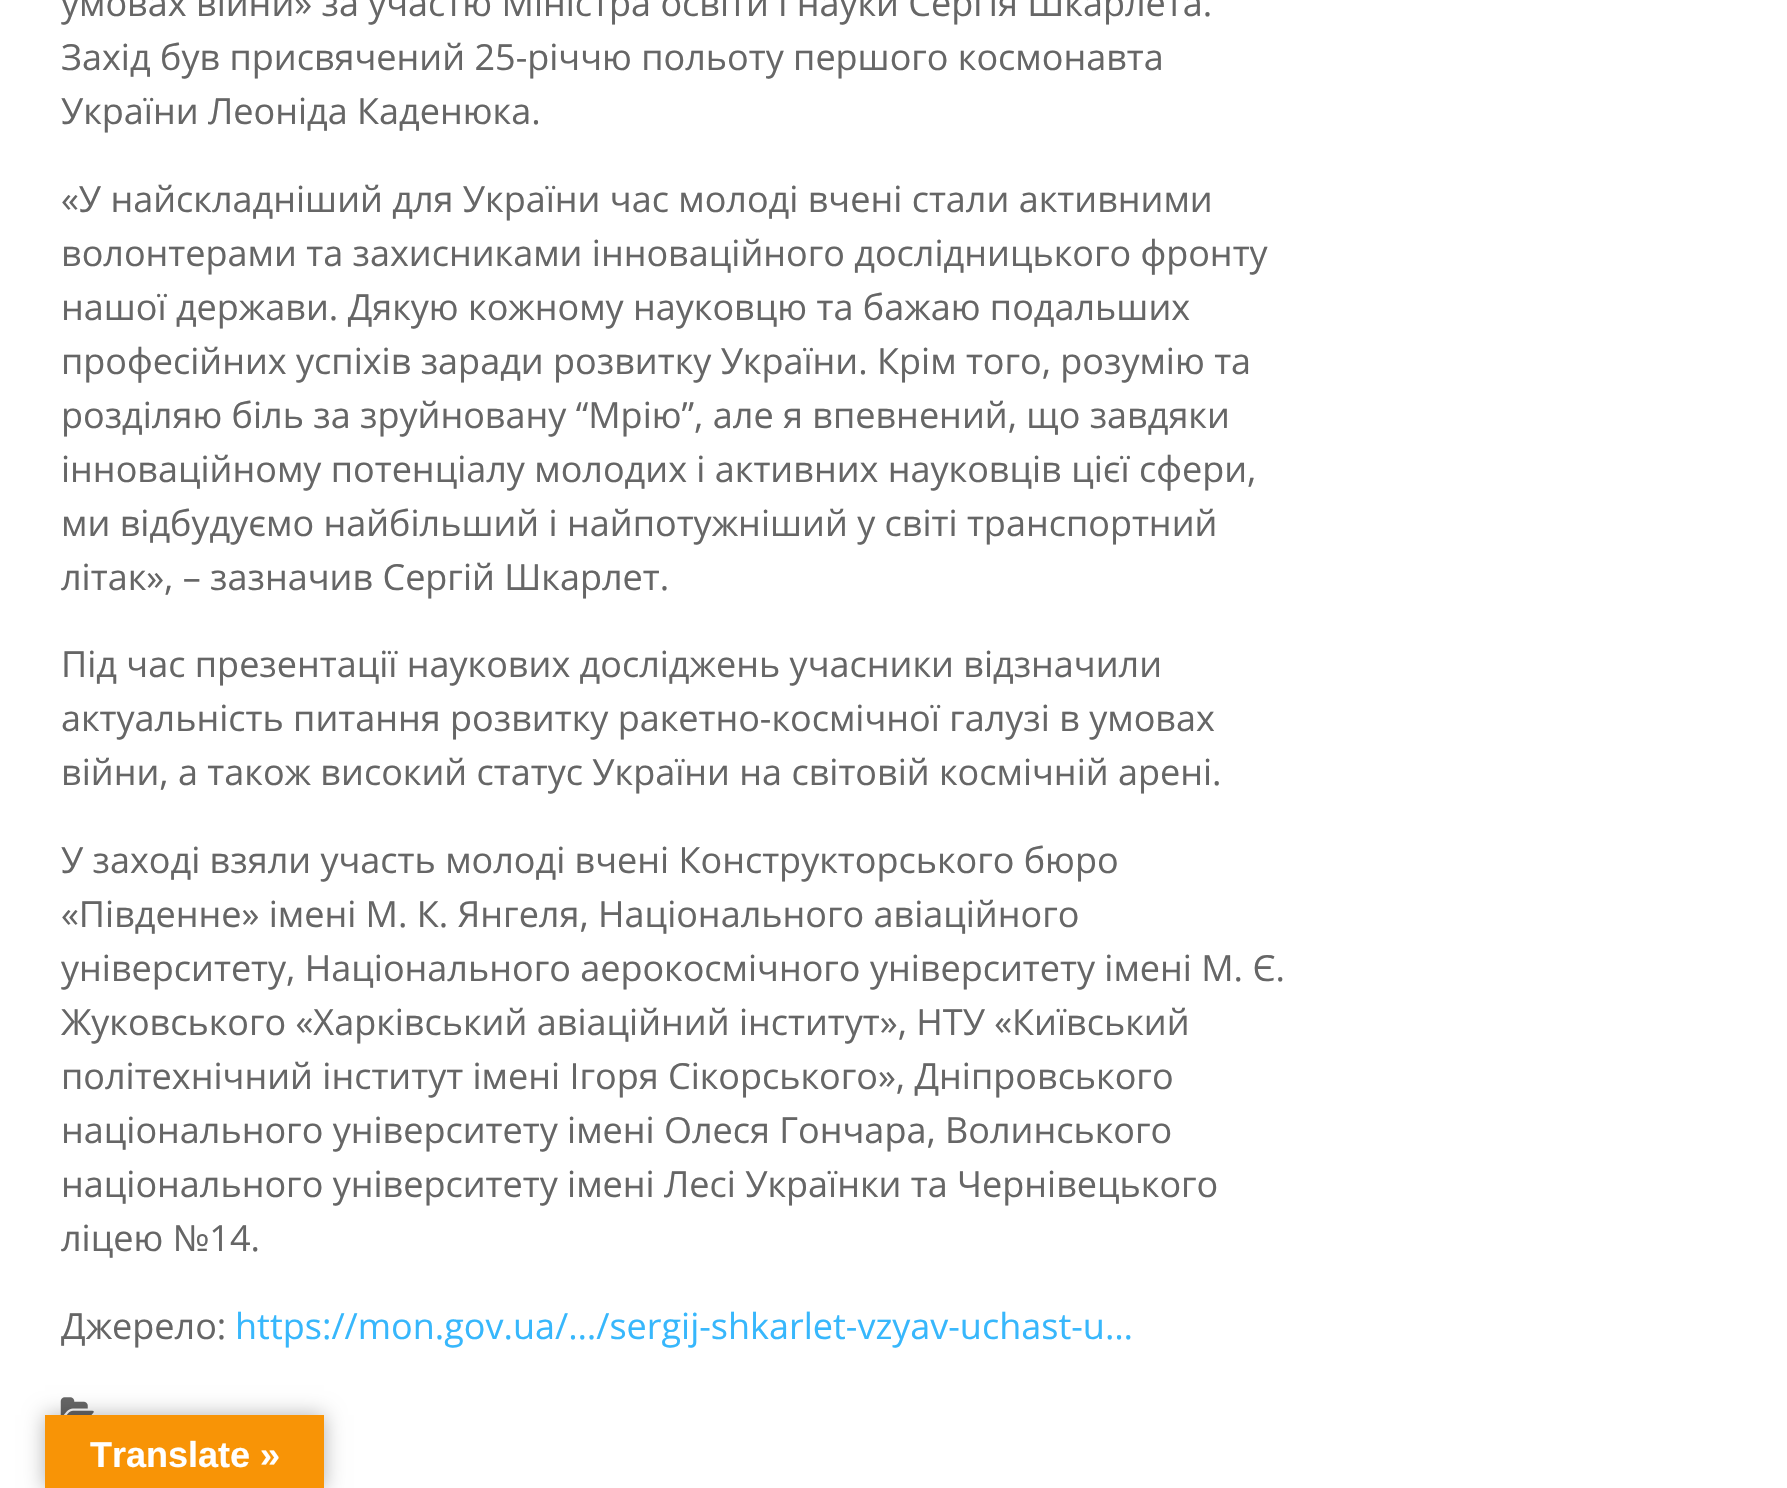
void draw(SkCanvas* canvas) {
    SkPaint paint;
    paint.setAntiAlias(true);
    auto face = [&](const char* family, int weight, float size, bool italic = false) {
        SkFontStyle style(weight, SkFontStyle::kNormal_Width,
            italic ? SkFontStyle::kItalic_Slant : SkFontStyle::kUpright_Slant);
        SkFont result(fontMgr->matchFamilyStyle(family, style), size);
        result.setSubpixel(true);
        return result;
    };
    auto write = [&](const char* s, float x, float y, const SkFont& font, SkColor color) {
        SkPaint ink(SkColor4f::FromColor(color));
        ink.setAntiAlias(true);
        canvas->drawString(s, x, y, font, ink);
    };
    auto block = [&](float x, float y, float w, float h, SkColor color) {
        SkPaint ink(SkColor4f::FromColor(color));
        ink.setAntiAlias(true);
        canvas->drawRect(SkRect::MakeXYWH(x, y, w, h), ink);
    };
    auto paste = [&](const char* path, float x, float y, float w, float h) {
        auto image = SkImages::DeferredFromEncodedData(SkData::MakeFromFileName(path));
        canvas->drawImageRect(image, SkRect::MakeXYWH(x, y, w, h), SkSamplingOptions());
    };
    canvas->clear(SK_ColorWHITE);
    auto kFont1 = face("Open Sans", 400, 36);
    write("умовах війни» за участю Міністра освіти і науки Сергія Шкарлета.", 61, 16, kFont1, SkColorSetRGB(102, 102, 102));
    write("Захід був присвячений 25-річчю польоту першого космонавта", 61, 70, kFont1, SkColorSetRGB(102, 102, 102));
    write("України Леоніда Каденюка.", 61, 124, kFont1, SkColorSetRGB(102, 102, 102));
    write("«У найскладніший для України час молоді вчені стали активними", 61, 212, kFont1, SkColorSetRGB(102, 102, 102));
    write("волонтерами та захисниками інноваційного дослідницького фронту", 61, 266, kFont1, SkColorSetRGB(102, 102, 102));
    write("нашої держави. Дякую кожному науковцю та бажаю подальших", 61, 320, kFont1, SkColorSetRGB(102, 102, 102));
    write("професійних успіхів заради розвитку України. Крім того, розумію та", 61, 374, kFont1, SkColorSetRGB(102, 102, 102));
    write("розділяю біль за зруйновану “Мрію”, але я впевнений, що завдяки", 61, 428, kFont1, SkColorSetRGB(102, 102, 102));
    write("інноваційному потенціалу молодих і активних науковців цієї сфери,", 61, 482, kFont1, SkColorSetRGB(102, 102, 102));
    write("ми відбудуємо найбільший і найпотужніший у світі транспортний", 61, 536, kFont1, SkColorSetRGB(102, 102, 102));
    write("літак», – зазначив Сергій Шкарлет.", 61, 590, kFont1, SkColorSetRGB(102, 102, 102));
    write("Під час презентації наукових досліджень учасники відзначили", 61, 677, kFont1, SkColorSetRGB(102, 102, 102));
    write("актуальність питання розвитку ракетно-космічної галузі в умовах", 61, 731, kFont1, SkColorSetRGB(102, 102, 102));
    write("війни, а також високий статус України на світовій космічній арені.", 61, 785, kFont1, SkColorSetRGB(102, 102, 102));
    write("У заході взяли участь молоді вчені Конструкторського бюро", 61, 873, kFont1, SkColorSetRGB(102, 102, 102));
    write("«Південне» імені М. К. Янгеля, Національного авіаційного", 61, 927, kFont1, SkColorSetRGB(102, 102, 102));
    write("університету, Національного аерокосмічного університету імені М. Є.", 61, 981, kFont1, SkColorSetRGB(102, 102, 102));
    write("Жуковського «Харківський авіаційний інститут», НТУ «Київський", 61, 1035, kFont1, SkColorSetRGB(102, 102, 102));
    write("політехнічний інститут імені Ігоря Сікорського», Дніпровського", 61, 1089, kFont1, SkColorSetRGB(102, 102, 102));
    write("національного університету імені Олеся Гончара, Волинського", 61, 1143, kFont1, SkColorSetRGB(102, 102, 102));
    write("національного університету імені Лесі Українки та Чернівецького", 61, 1197, kFont1, SkColorSetRGB(102, 102, 102));
    write("ліцею №14.", 61, 1251, kFont1, SkColorSetRGB(102, 102, 102));
    write("Джерело:", 61, 1339, kFont1, SkColorSetRGB(102, 102, 102));
    write("https://mon.gov.ua/…/sergij-shkarlet-vzyav-uchast-u…", 235, 1339, kFont1, SkColorSetRGB(55, 183, 252));
    paste("pic1.png", 60, 1397, 34, 18);
    paint.setColor(SkColorSetARGB(77, 0, 0, 0));
    paint.setMaskFilter(SkMaskFilter::MakeBlur(kNormal_SkBlurStyle, 10));
    canvas->drawRect(SkRect::MakeXYWH(45, 1415, 279, 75), paint);
    paint.setMaskFilter(nullptr);
    block(45, 1415, 279, 73, SkColorSetRGB(248, 148, 6));
    auto kFont2 = face("Liberation Sans", 700, 36);
    write("Translate »", 90, 1467, kFont2, SK_ColorWHITE);
}
